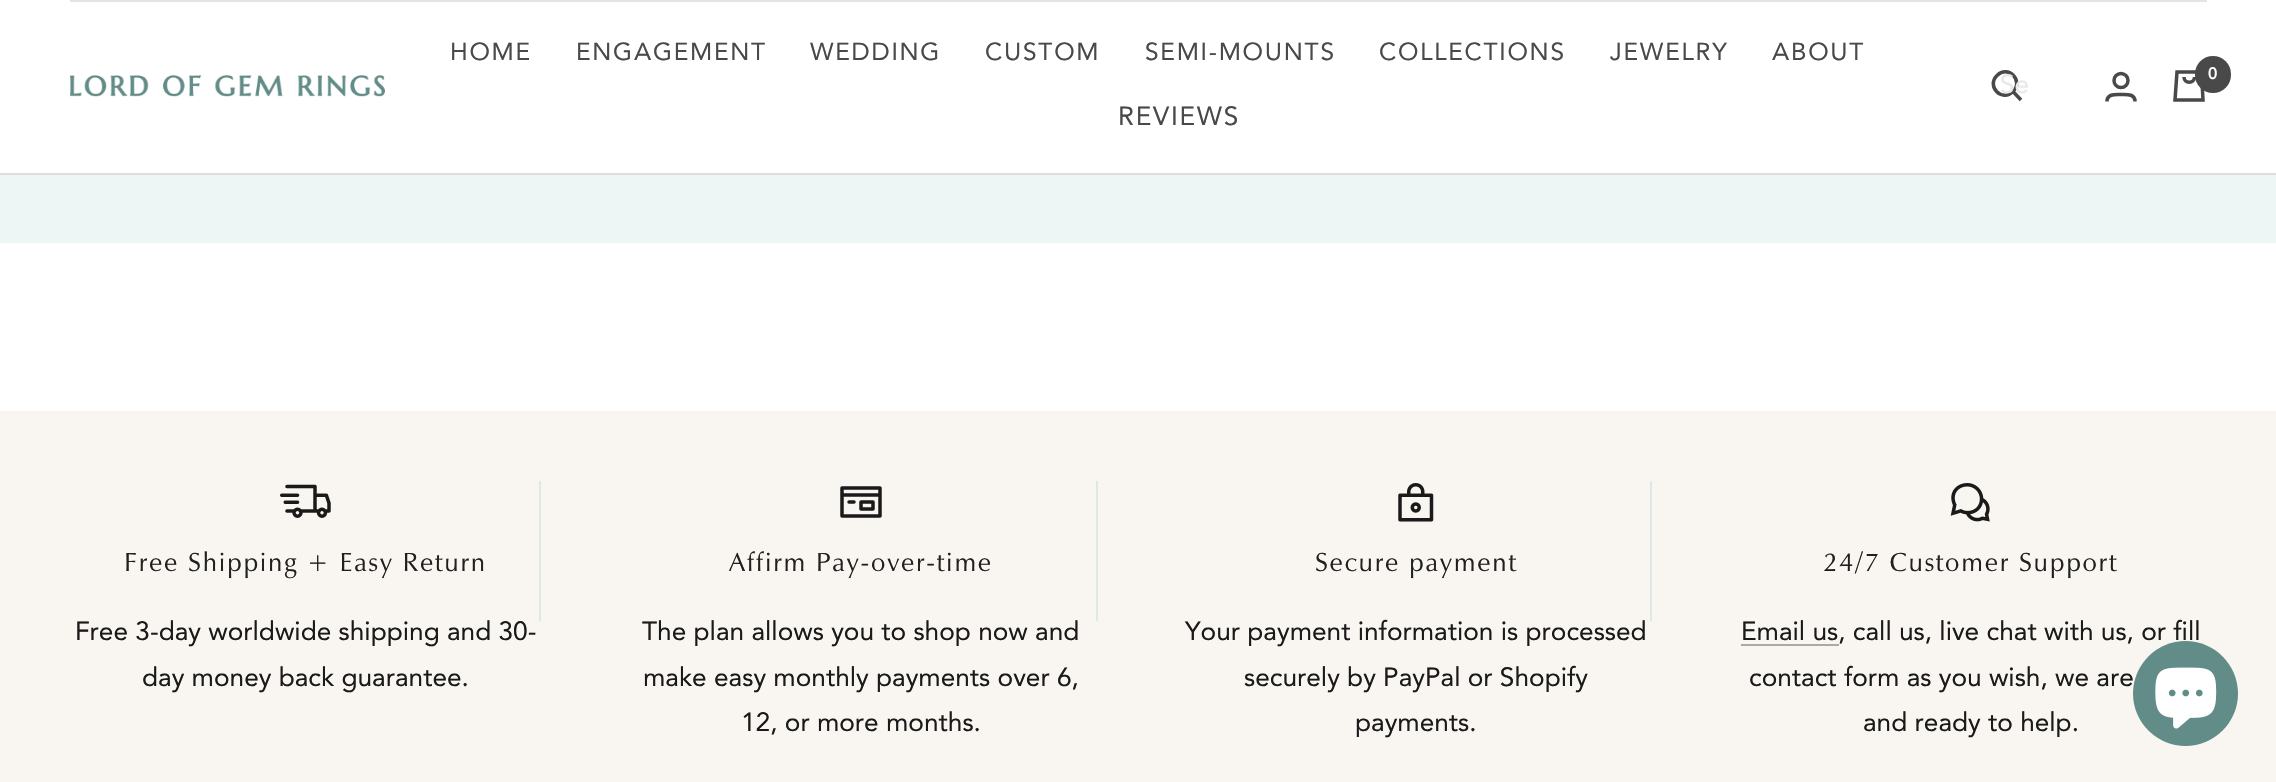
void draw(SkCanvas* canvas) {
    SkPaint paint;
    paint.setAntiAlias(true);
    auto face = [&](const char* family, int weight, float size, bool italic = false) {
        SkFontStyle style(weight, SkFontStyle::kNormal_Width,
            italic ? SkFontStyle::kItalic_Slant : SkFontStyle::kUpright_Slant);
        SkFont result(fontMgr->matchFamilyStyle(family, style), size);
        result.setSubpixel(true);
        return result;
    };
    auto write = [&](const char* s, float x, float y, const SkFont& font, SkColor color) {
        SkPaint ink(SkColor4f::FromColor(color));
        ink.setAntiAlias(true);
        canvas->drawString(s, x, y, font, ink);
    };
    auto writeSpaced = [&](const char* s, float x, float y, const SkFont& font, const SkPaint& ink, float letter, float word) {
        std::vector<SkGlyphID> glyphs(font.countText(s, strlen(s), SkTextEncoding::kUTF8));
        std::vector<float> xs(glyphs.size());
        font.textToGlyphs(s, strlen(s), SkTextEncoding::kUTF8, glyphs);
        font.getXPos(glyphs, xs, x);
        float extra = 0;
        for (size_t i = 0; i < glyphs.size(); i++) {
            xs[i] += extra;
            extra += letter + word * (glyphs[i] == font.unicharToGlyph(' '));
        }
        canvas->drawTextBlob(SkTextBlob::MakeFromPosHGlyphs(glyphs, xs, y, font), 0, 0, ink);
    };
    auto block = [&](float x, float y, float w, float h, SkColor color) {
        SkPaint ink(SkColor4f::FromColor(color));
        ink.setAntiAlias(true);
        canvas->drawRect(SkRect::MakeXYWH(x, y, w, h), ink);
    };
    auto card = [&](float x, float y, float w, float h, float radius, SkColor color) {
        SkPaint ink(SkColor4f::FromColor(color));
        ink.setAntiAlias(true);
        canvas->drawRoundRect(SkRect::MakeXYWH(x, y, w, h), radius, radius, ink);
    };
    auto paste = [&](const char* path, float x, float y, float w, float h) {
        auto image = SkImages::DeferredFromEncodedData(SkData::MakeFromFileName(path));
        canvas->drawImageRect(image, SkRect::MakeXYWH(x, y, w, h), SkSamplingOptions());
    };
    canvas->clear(SK_ColorWHITE);
    paint.setColor(SkColorSetRGB(221, 221, 221));
    canvas->drawPath(SkPathBuilder().moveTo(0, 173).lineTo(0, 175).lineTo(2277, 175).lineTo(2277, 2).lineTo(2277, 173).close().detach(), paint);
    block(70, 0, 2137, 2, SkColorSetRGB(228, 228, 228));
    paste("pic1.png", 70, 75, 315, 22);
    auto kFont1 = face("Avenir", 400, 24.5f);
    paint.setColor(SkColorSetRGB(73, 73, 73));
    writeSpaced("HOME", 450, 60, kFont1, paint, 1.75f, 0);
    writeSpaced("ENGAGEMENT", 576, 60, kFont1, paint, 1.75f, 0);
    writeSpaced("WEDDING", 810, 60, kFont1, paint, 1.75f, 0);
    writeSpaced("CUSTOM", 985, 60, kFont1, paint, 1.75f, 0);
    writeSpaced("SEMI-MOUNTS", 1145, 60, kFont1, paint, 1.75f, 0);
    writeSpaced("COLLECTIONS", 1379, 60, kFont1, paint, 1.75f, 0);
    writeSpaced("JEWELRY", 1610, 60, kFont1, paint, 1.75f, 0);
    writeSpaced("ABOUT", 1772, 60, kFont1, paint, 1.75f, 0);
    auto kFont2 = face("Avenir", 400, 26.25f);
    writeSpaced("REVIEWS", 1118, 125, kFont2, paint, 1.75f, 0);
    paint.setStyle(SkPaint::kStroke_Style);
    paint.setStrokeWidth(3.5f);
    canvas->drawPath(SkPathBuilder().moveTo(2013, 91.5f).cubicTo(2024, 80.5f, 2008, 64.5f, 1997, 75.5f).cubicTo(1986, 86.5f, 2002, 102.5f, 2013, 91.5f).close().moveTo(2013, 91.5f).lineTo(2021, 100).detach(), paint);
    write("Se", 2000, 93, kFont2, SkColorSetRGB(232, 232, 232));
    canvas->drawCircle(2121, 80.5f, 7, paint);
    canvas->drawPath(SkPathBuilder().moveTo(2107, 101.5f).cubicTo(2107, 93.5f, 2115.5f, 94.5f, 2121, 94.5f).cubicTo(2126.5f, 94.5f, 2135, 93.5f, 2135, 101.5f).detach(), paint);
    canvas->drawPath(SkPathBuilder().moveTo(2177, 72).lineTo(2201.5f, 72).lineTo(2203, 100).lineTo(2175, 100).close().moveTo(2184, 77).cubicTo(2184, 84, 2194.5f, 84, 2194.5f, 77).detach(), paint);
    card(2195, 56, 36, 37, 18, SkColorSetRGB(73, 73, 73));
    auto kFont3 = face("Avenir", 700, 16);
    write("0", 2208, 79, kFont3, SK_ColorWHITE);
    block(0, 175, 2276, 68, SkColorSetRGB(237, 246, 244));
    block(0, 411, 2276, 371, SkColorSetRGB(249, 246, 241));
    paste("pic2.png", 280, 484, 51, 34);
    block(539, 481, 2, 140, SkColorSetRGB(224, 232, 231));
    auto kFont4 = face("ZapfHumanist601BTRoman", 400, 26.25f);
    paint.setStyle(SkPaint::kFill_Style);
    paint.setColor(SkColorSetRGB(32, 32, 32));
    writeSpaced("Free Shipping + Easy Return", 124, 571, kFont4, paint, 1.75f, 0);
    write("Free 3-day worldwide shipping and 30-", 75, 640, kFont2, SkColorSetRGB(26, 26, 26));
    write("day money back guarantee.", 142, 686, kFont2, SkColorSetRGB(26, 26, 26));
    paint.setStyle(SkPaint::kStroke_Style);
    paint.setStrokeCap(SkPaint::kRound_Cap);
    paint.setStrokeJoin(SkPaint::kRound_Join);
    paint.setColor(SkColorSetRGB(26, 26, 26));
    canvas->drawPath(SkPathBuilder().moveTo(880, 495).lineTo(880, 488).lineTo(842, 488).lineTo(842, 495).moveTo(880, 495).lineTo(880, 516).lineTo(842, 516).lineTo(842, 495).moveTo(880, 495).lineTo(842, 495).moveTo(849, 502).lineTo(854, 502).moveTo(873, 502).lineTo(873, 509).lineTo(861, 509).lineTo(861, 502).close().detach(), paint);
    block(1096, 481, 2, 140, SkColorSetRGB(224, 232, 231));
    paint.setStyle(SkPaint::kFill_Style);
    paint.setColor(SkColorSetRGB(32, 32, 32));
    writeSpaced("Affirm Pay-over-time", 729, 571, kFont4, paint, 1.75f, 0);
    write("The plan allows you to shop now and", 642, 640, kFont2, SkColorSetRGB(26, 26, 26));
    write("make easy monthly payments over 6,", 643, 686, kFont2, SkColorSetRGB(26, 26, 26));
    write("12, or more months.", 741, 731, kFont2, SkColorSetRGB(26, 26, 26));
    paste("pic3.png", 1398, 483, 36, 39);
    block(1650, 481, 2, 140, SkColorSetRGB(224, 232, 231));
    writeSpaced("Secure payment", 1315, 571, kFont4, paint, 1.75f, 0);
    write("Your payment information is processed", 1185, 640, kFont2, SkColorSetRGB(26, 26, 26));
    write("securely by PayPal or Shopify", 1244, 686, kFont2, SkColorSetRGB(26, 26, 26));
    write("payments.", 1355, 731, kFont2, SkColorSetRGB(26, 26, 26));
    paste("pic4.png", 1950, 483, 40, 39);
    writeSpaced("24/7 Customer Support", 1823, 571, kFont4, paint, 1.75f, 0);
    write("Email us, call us, live chat with us, or fill", 1741, 640, kFont2, SkColorSetRGB(26, 26, 26));
    block(1741, 644, 98, 2, SkColorSetRGB(171, 169, 166));
    write("contact form as you wish, we are", 1749, 686, kFont2, SkColorSetRGB(26, 26, 26));
    write("and ready to help.", 1863, 731, kFont2, SkColorSetRGB(26, 26, 26));
    paint.setColor(SkColorSetRGB(98, 140, 135));
    canvas->drawCircle(2185.5f, 693.5f, 52.5f, paint);
    paste("pic5.png", 2155, 667, 62, 62);
}
